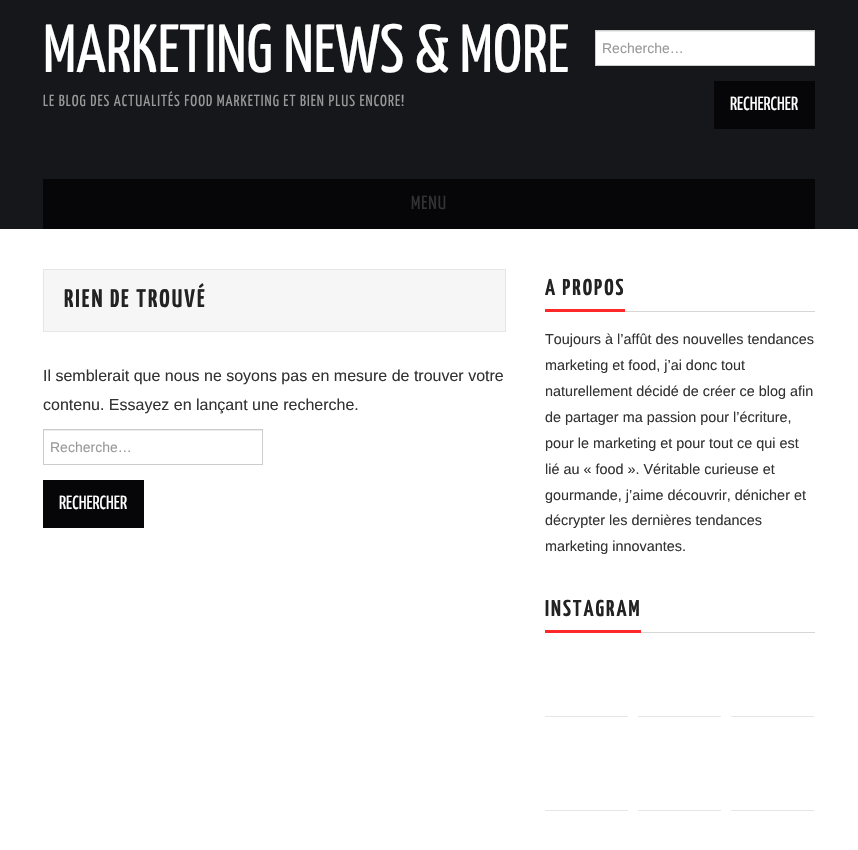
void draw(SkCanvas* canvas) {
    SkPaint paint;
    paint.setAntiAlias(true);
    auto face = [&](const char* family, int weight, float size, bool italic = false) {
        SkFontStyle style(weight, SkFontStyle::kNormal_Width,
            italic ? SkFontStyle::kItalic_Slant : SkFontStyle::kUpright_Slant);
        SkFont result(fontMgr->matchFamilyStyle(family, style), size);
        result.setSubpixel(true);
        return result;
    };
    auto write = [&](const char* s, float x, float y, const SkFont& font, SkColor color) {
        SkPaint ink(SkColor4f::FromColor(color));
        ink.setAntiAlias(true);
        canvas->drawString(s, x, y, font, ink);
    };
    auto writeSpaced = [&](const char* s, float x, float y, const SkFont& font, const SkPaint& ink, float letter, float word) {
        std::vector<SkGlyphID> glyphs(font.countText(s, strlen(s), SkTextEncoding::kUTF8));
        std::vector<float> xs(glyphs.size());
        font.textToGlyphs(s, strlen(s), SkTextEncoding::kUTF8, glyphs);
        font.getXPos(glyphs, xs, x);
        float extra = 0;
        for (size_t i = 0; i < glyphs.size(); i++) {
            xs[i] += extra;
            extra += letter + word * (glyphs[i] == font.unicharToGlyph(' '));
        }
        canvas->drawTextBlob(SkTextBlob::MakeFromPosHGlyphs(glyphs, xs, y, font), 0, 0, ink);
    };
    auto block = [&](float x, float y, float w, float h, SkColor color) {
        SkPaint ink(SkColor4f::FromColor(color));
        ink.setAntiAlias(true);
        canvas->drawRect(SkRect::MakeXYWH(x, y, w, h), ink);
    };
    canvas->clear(SK_ColorWHITE);
    block(0, 0, 858, 229, SkColorSetRGB(22, 23, 27));
    auto kFont1 = face("Yanone Kaffeesatz", 400, 68);
    write("MARKETING NEWS & MORE", 43, 72, kFont1, SK_ColorWHITE);
    auto kFont2 = face("Yanone Kaffeesatz", 400, 16);
    paint.setColor(SkColorSetRGB(153, 153, 153));
    writeSpaced("LE BLOG DES ACTUALITÉS FOOD MARKETING ET BIEN PLUS ENCORE!", 43, 106, kFont2, paint, 1, 0);
    block(596, 32, 218, 33, SK_ColorWHITE);
    block(596, 31, 218, 1, SkColorSetRGB(236, 236, 236));
    paint.setStyle(SkPaint::kStroke_Style);
    paint.setStrokeWidth(1);
    paint.setColor(SkColorSetRGB(204, 204, 204));
    canvas->drawRect(SkRect::MakeXYWH(595.5f, 30.5f, 219, 35), paint);
    auto kFont3 = face("Liberation Sans", 400, 14);
    write("Recherche…", 602, 53, kFont3, SkColorSetRGB(153, 153, 153));
    block(714, 81, 101, 48, SkColorSetRGB(6, 6, 8));
    auto kFont4 = face("Yanone Kaffeesatz", 400, 19);
    write("RECHERCHER", 730, 110, kFont4, SK_ColorWHITE);
    block(43, 179, 772, 50, SkColorSetRGB(6, 6, 8));
    paint.setStyle(SkPaint::kFill_Style);
    paint.setColor(SkColorSetRGB(51, 51, 51));
    writeSpaced("MENU", 411, 209, kFont4, paint, 1, 0);
    paint.setColor(SkColorSetRGB(246, 246, 246));
    canvas->drawRect(SkRect::MakeXYWH(43.5f, 269.5f, 462, 62), paint);
    paint.setStyle(SkPaint::kStroke_Style);
    paint.setColor(SkColorSetRGB(230, 230, 230));
    canvas->drawRect(SkRect::MakeXYWH(43.5f, 269.5f, 462, 62), paint);
    auto kFont5 = face("Yanone Kaffeesatz", 700, 25.5f);
    paint.setStyle(SkPaint::kFill_Style);
    paint.setColor(SkColorSetRGB(34, 34, 34));
    writeSpaced("RIEN DE TROUVÉ", 64, 307, kFont5, paint, 2, 0);
    auto kFont6 = face("Liberation Sans", 400, 16);
    write("Il semblerait que nous ne soyons pas en mesure de trouver votre", 43, 381, kFont6, SkColorSetRGB(51, 51, 51));
    write("contenu. Essayez en lançant une recherche.", 43, 410, kFont6, SkColorSetRGB(51, 51, 51));
    block(44, 430, 218, 1, SkColorSetRGB(236, 236, 236));
    paint.setStyle(SkPaint::kStroke_Style);
    paint.setColor(SkColorSetRGB(204, 204, 204));
    canvas->drawRect(SkRect::MakeXYWH(43.5f, 429.5f, 219, 35), paint);
    write("Recherche…", 50, 452, kFont3, SkColorSetRGB(153, 153, 153));
    block(43, 480, 101, 48, SkColorSetRGB(6, 6, 8));
    write("RECHERCHER", 59, 509, kFont4, SK_ColorWHITE);
    block(625, 311, 190, 1, SkColorSetRGB(214, 214, 214));
    block(545, 309, 80, 3, SkColorSetRGB(255, 40, 40));
    auto kFont7 = face("Yanone Kaffeesatz", 700, 23);
    paint.setStyle(SkPaint::kFill_Style);
    paint.setColor(SkColorSetRGB(34, 34, 34));
    writeSpaced("A PROPOS", 545, 295, kFont7, paint, 2, 0);
    auto kFont8 = face("Liberation Sans", 400, 14.4f);
    write("Toujours à l’affût des nouvelles tendances", 545, 344, kFont8, SkColorSetRGB(51, 51, 51));
    write("marketing et food, j’ai donc tout", 545, 370, kFont8, SkColorSetRGB(51, 51, 51));
    write("naturellement décidé de créer ce blog afin", 545, 396, kFont8, SkColorSetRGB(51, 51, 51));
    write("de partager ma passion pour l’écriture,", 545, 422, kFont8, SkColorSetRGB(51, 51, 51));
    write("pour le marketing et pour tout ce qui est", 545, 448, kFont8, SkColorSetRGB(51, 51, 51));
    write("lié au « food ». Véritable curieuse et", 545, 474, kFont8, SkColorSetRGB(51, 51, 51));
    write("gourmande, j’aime découvrir, dénicher et", 545, 500, kFont8, SkColorSetRGB(51, 51, 51));
    write("décrypter les dernières tendances", 545, 525, kFont8, SkColorSetRGB(51, 51, 51));
    write("marketing innovantes.", 545, 551, kFont8, SkColorSetRGB(51, 51, 51));
    block(641, 632, 174, 1, SkColorSetRGB(214, 214, 214));
    block(545, 630, 96, 3, SkColorSetRGB(255, 40, 40));
    writeSpaced("INSTAGRAM", 545, 616, kFont7, paint, 2, 0);
    block(545, 716, 83, 1, SkColorSetRGB(230, 230, 230));
    block(638, 716, 83, 1, SkColorSetRGB(230, 230, 230));
    block(731, 716, 83, 1, SkColorSetRGB(230, 230, 230));
    block(545, 810, 83, 1, SkColorSetRGB(230, 230, 230));
    block(638, 810, 83, 1, SkColorSetRGB(230, 230, 230));
    block(731, 810, 83, 1, SkColorSetRGB(230, 230, 230));
}
